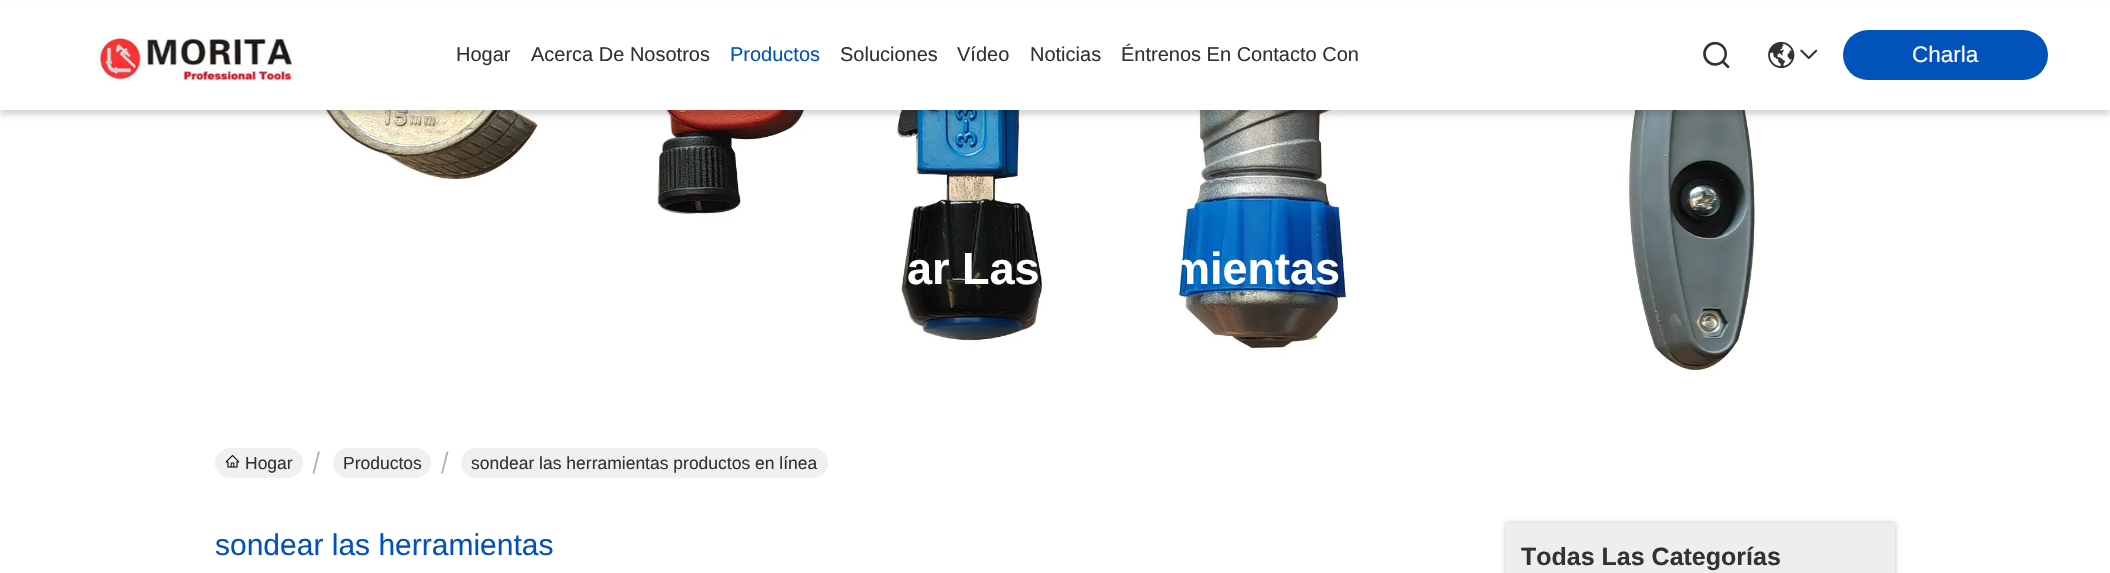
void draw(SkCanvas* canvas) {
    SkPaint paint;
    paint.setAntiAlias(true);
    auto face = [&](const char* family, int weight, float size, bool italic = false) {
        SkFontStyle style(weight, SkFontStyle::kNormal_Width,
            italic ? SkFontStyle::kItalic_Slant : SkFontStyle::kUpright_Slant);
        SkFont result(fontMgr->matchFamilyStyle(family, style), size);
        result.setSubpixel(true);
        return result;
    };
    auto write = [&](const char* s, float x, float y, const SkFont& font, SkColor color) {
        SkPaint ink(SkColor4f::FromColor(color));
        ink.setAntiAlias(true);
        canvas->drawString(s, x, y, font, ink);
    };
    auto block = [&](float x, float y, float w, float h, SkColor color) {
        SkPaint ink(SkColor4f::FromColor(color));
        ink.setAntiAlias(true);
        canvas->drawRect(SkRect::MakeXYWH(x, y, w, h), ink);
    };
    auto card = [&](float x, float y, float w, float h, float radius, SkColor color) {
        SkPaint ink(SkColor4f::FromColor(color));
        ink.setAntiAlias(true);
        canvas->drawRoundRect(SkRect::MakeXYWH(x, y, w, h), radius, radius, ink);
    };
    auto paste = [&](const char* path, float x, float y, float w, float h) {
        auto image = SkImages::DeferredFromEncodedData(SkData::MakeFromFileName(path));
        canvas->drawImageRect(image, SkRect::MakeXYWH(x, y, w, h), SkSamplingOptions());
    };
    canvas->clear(SK_ColorWHITE);
    paste("pic5.png", 325, 110, 1431, 262);
    paint.setColor(SkColorSetARGB(38, 0, 0, 0));
    paint.setMaskFilter(SkMaskFilter::MakeBlur(kNormal_SkBlurStyle, 2.5f));
    canvas->drawRect(SkRect::MakeXYWH(0, 5, 2110, 110), paint);
    paint.setMaskFilter(nullptr);
    block(0, 1, 2110, 109, SK_ColorWHITE);
    paste("pic1.png", 97, 38, 200, 44);
    auto kFont1 = face("Liberation Sans", 400, 20);
    write("Hogar", 456, 61, kFont1, SkColorSetRGB(50, 50, 50));
    write("Acerca De Nosotros", 531, 61, kFont1, SkColorSetRGB(50, 50, 50));
    write("Productos", 730, 61, kFont1, SkColorSetRGB(2, 82, 187));
    write("Soluciones", 840, 61, kFont1, SkColorSetRGB(50, 50, 50));
    write("Vídeo", 957, 61, kFont1, SkColorSetRGB(50, 50, 50));
    write("Noticias", 1030, 61, kFont1, SkColorSetRGB(50, 50, 50));
    write("Éntrenos En Contacto Con", 1121, 61, kFont1, SkColorSetRGB(50, 50, 50));
    paste("pic2.png", 1703, 41, 27, 28);
    paste("pic3.png", 1768, 41, 27, 28);
    paste("pic4.png", 1800, 49, 18, 11);
    card(1843, 30, 205, 50, 25, SkColorSetRGB(2, 82, 187));
    auto kFont2 = face("Liberation Sans", 400, 22.5f);
    write("Charla", 1912, 62, kFont2, SK_ColorWHITE);
    auto kFont3 = face("Liberation Sans", 700, 45);
    write("ar Las", 907, 284, kFont3, SK_ColorWHITE);
    write("mientas", 1170, 284, kFont3, SK_ColorWHITE);
    card(215, 448, 88, 30, 15, SkColorSetRGB(240, 240, 240));
    paste("pic6.png", 225, 455, 15, 13);
    auto kFont4 = face("Liberation Sans", 400, 17.5f);
    write("Hogar", 245, 469, kFont4, SkColorSetRGB(50, 50, 50));
    paint.setColor(SkColorSetRGB(180, 180, 180));
    canvas->drawPath(SkPathBuilder(SkPathFillType::kEvenOdd).moveTo(320, 451.5f).lineTo(314.5f, 473.5f).lineTo(312.5f, 473.5f).lineTo(318, 451.5f).close().detach(), paint);
    card(333, 448, 98, 30, 15, SkColorSetRGB(240, 240, 240));
    write("Productos", 343, 469, kFont4, SkColorSetRGB(50, 50, 50));
    canvas->drawPath(SkPathBuilder(SkPathFillType::kEvenOdd).moveTo(448.5f, 451.5f).lineTo(443, 473.5f).lineTo(441, 473.5f).lineTo(446.5f, 451.5f).close().detach(), paint);
    card(461, 448, 367, 30, 15, SkColorSetRGB(240, 240, 240));
    write("sondear las herramientas productos en línea", 471, 469, kFont4, SkColorSetRGB(50, 50, 50));
    auto kFont5 = face("Liberation Sans", 400, 30);
    write("sondear las herramientas", 215, 555, kFont5, SkColorSetRGB(2, 82, 187));
    paint.setColor(SkColorSetARGB(64, 0, 0, 0));
    paint.setMaskFilter(SkMaskFilter::MakeBlur(kNormal_SkBlurStyle, 2.5f));
    canvas->drawRect(SkRect::MakeXYWH(1506, 523, 389, 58), paint);
    paint.setMaskFilter(nullptr);
    block(1506, 523, 389, 50, SkColorSetRGB(238, 238, 238));
    auto kFont6 = face("Liberation Sans", 700, 25);
    write("Todas Las Categorías", 1521, 565, kFont6, SkColorSetRGB(50, 50, 50));
}
